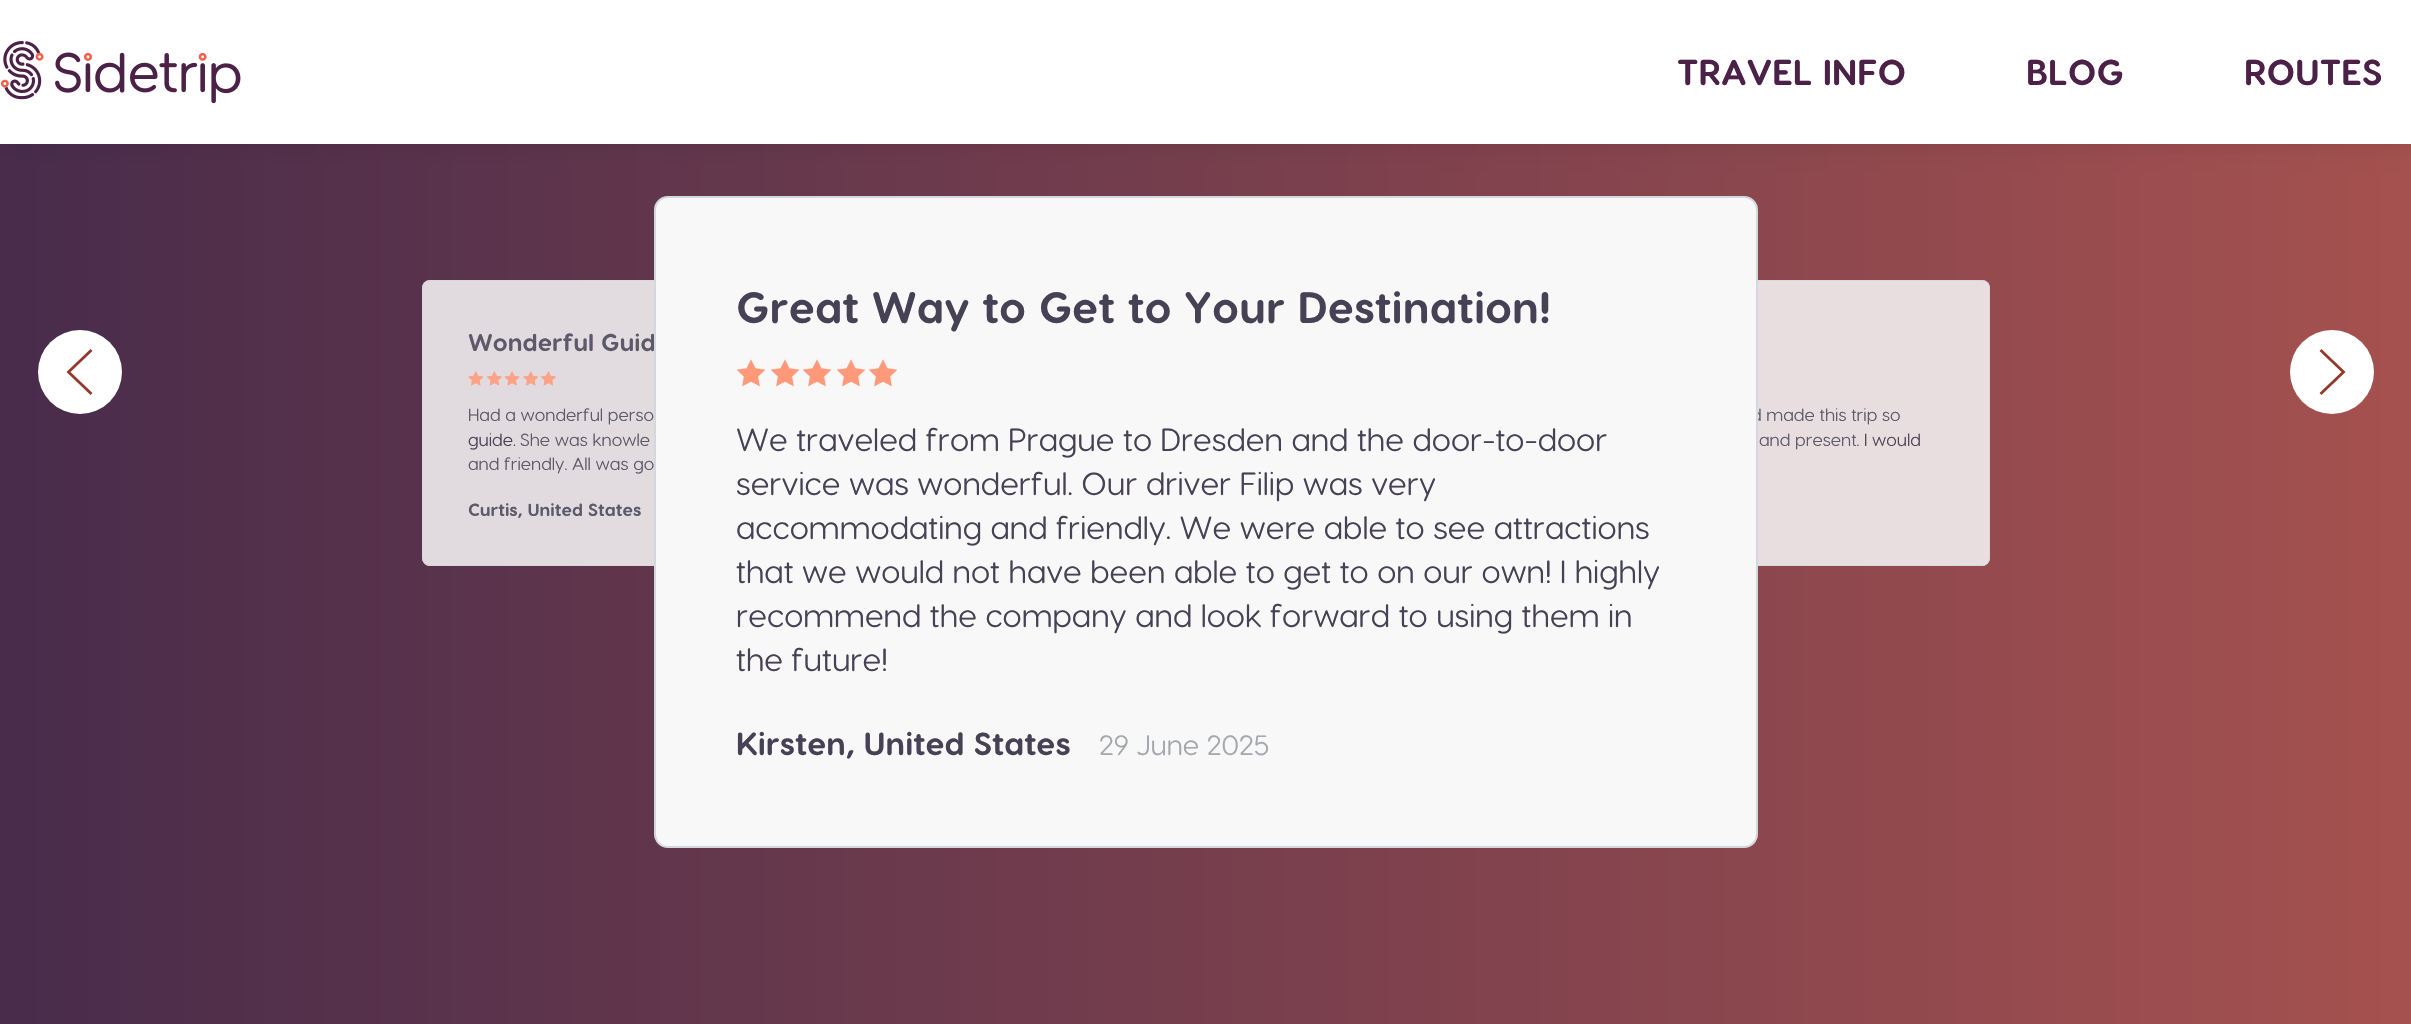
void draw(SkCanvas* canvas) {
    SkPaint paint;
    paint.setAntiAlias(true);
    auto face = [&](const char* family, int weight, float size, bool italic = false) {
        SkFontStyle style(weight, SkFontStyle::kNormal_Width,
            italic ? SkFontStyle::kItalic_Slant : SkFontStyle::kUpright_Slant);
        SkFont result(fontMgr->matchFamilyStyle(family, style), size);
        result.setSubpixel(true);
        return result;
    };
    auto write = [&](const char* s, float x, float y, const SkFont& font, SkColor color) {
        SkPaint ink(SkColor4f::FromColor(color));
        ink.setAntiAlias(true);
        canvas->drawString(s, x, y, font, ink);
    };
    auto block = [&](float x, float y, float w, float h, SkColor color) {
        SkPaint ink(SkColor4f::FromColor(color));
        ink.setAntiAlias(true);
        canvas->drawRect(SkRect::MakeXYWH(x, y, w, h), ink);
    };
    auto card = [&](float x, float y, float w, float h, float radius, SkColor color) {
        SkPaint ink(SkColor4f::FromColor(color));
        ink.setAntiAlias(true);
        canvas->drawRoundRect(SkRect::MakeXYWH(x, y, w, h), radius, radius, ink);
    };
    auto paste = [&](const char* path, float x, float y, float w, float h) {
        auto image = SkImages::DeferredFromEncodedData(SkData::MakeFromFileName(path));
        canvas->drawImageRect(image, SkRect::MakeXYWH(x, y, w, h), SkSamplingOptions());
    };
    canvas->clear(SK_ColorWHITE);
    {
        const SkColor colors[] = {SkColorSetRGB(165, 81, 79), SkColorSetRGB(73, 44, 75)};
        const float stops[] = {0, 0.99f};
        const SkPoint ends[] = {{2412, 372}, {0, 372}};
        paint.setShader(SkGradientShader::MakeLinear(ends, colors, stops, 2, SkTileMode::kClamp));
        paint.setAlpha(255);
    }
    canvas->drawRect(SkRect::MakeXYWH(0, 144, 2411, 880), paint);
    paint.setShader(nullptr);
    paint.setColor(SkColorSetARGB(20, 0, 0, 0));
    paint.setMaskFilter(SkMaskFilter::MakeBlur(kNormal_SkBlurStyle, 8));
    canvas->drawRect(SkRect::MakeXYWH(0, 4, 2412, 144), paint);
    paint.setMaskFilter(nullptr);
    block(0, 0, 2411, 144, SK_ColorWHITE);
    paste("pic1.png", 1, 41, 240, 63);
    auto kFont1 = face("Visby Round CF", 700, 36);
    write("TRAVEL INFO", 1677, 85, kFont1, SkColorSetRGB(76, 33, 71));
    write("BLOG", 2026, 85, kFont1, SkColorSetRGB(76, 33, 71));
    write("ROUTES", 2244, 85, kFont1, SkColorSetRGB(76, 33, 71));
    paint.setColor(SK_ColorWHITE);
    canvas->drawCircle(80, 372, 42, paint);
    paint.setStyle(SkPaint::kStroke_Style);
    paint.setStrokeWidth(2.8f);
    paint.setColor(SkColorSetRGB(148, 56, 43));
    canvas->drawPath(SkPathBuilder().moveTo(91.5f, 350).lineTo(68.5f, 372).lineTo(91.5f, 394).detach(), paint);
    card(422, 280, 608, 286, 8, SkColorSetARGB(217, 248, 248, 248));
    paint.setStrokeWidth(1);
    paint.setColor(SkColorSetARGB(217, 211, 216, 222));
    canvas->drawRoundRect(SkRect::MakeXYWH(422.5f, 280.5f, 607, 285), 7.5f, 7.5f, paint);
    auto kFont2 = face("Visby Round CF", 700, 24.25f);
    write("Wonderful Guid", 468, 351, kFont2, SkColorSetRGB(92, 90, 106));
    paste("pic2.png", 468, 371, 16, 15);
    paste("pic3.png", 486, 371, 16, 15);
    paste("pic4.png", 504, 371, 16, 15);
    paste("pic5.png", 523, 371, 15, 15);
    paste("pic6.png", 540, 371, 16, 15);
    auto kFont3 = face("Visby Round CF", 400, 17.6f);
    write("Had a wonderful perso", 468, 421, kFont3, SkColorSetRGB(92, 90, 106));
    write("guide.", 468, 446, kFont3, SkColorSetRGB(71, 65, 85));
    write("She was knowle", 520, 446, kFont3, SkColorSetRGB(92, 90, 106));
    write("and friendly.", 468, 470, kFont3, SkColorSetRGB(92, 90, 106));
    write("All was go", 572, 470, kFont3, SkColorSetRGB(92, 90, 106));
    auto kFont4 = face("Visby Round CF", 700, 17.6f);
    write("Curtis, United States", 468, 516, kFont4, SkColorSetRGB(92, 90, 106));
    card(1382, 280, 608, 286, 8, SkColorSetARGB(217, 248, 248, 248));
    canvas->drawRoundRect(SkRect::MakeXYWH(1382.5f, 280.5f, 607, 285), 7.5f, 7.5f, paint);
    write("d made this trip so", 1751, 421, kFont3, SkColorSetRGB(92, 90, 106));
    paint.setStyle(SkPaint::kFill_Style);
    paint.setColor(SkColorSetRGB(248, 248, 248));
    canvas->drawRoundRect(SkRect::MakeXYWH(655, 197, 1102, 650), 13, 13, paint);
    paint.setStyle(SkPaint::kStroke_Style);
    paint.setStrokeWidth(2);
    paint.setColor(SkColorSetRGB(211, 216, 222));
    canvas->drawRoundRect(SkRect::MakeXYWH(655, 197, 1102, 650), 13, 13, paint);
    auto kFont5 = face("Visby Round CF", 700, 44);
    write("Great Way to Get to Your Destination!", 736, 323, kFont5, SkColorSetRGB(71, 65, 85));
    paste("pic7.png", 736, 359, 30, 28);
    paste("pic7.png", 770, 359, 30, 28);
    paste("pic7.png", 802, 359, 30, 28);
    paste("pic7.png", 836, 359, 30, 28);
    paste("pic7.png", 868, 359, 30, 28);
    auto kFont6 = face("Visby Round CF", 400, 32);
    write("We traveled from Prague to Dresden and the door-to-door", 736, 451, kFont6, SkColorSetRGB(71, 65, 85));
    write("service was wonderful. Our driver Filip was very", 736, 495, kFont6, SkColorSetRGB(71, 65, 85));
    write("accommodating and friendly. We were able to see attractions", 736, 539, kFont6, SkColorSetRGB(71, 65, 85));
    write("that we would not have been able to get to on our own! I highly", 736, 583, kFont6, SkColorSetRGB(71, 65, 85));
    write("recommend the company and look forward to using them in", 736, 627, kFont6, SkColorSetRGB(71, 65, 85));
    write("the future!", 736, 671, kFont6, SkColorSetRGB(71, 65, 85));
    auto kFont7 = face("Visby Round CF", 700, 32);
    write("Kirsten, United States", 736, 755, kFont7, SkColorSetRGB(71, 65, 85));
    auto kFont8 = face("Visby Round CF", 400, 28);
    write("29 June 2025", 1099, 755, kFont8, SkColorSetRGB(164, 168, 173));
    write("and present.", 1759, 446, kFont3, SkColorSetRGB(92, 90, 106));
    write("I would", 1864, 446, kFont3, SkColorSetRGB(80, 68, 85));
    paint.setStyle(SkPaint::kFill_Style);
    paint.setColor(SK_ColorWHITE);
    canvas->drawCircle(2332, 372, 42, paint);
    paint.setStyle(SkPaint::kStroke_Style);
    paint.setStrokeWidth(2.8f);
    paint.setColor(SkColorSetRGB(148, 56, 43));
    canvas->drawPath(SkPathBuilder().moveTo(2320.5f, 394).lineTo(2343.5f, 372).lineTo(2320.5f, 350).detach(), paint);
}
